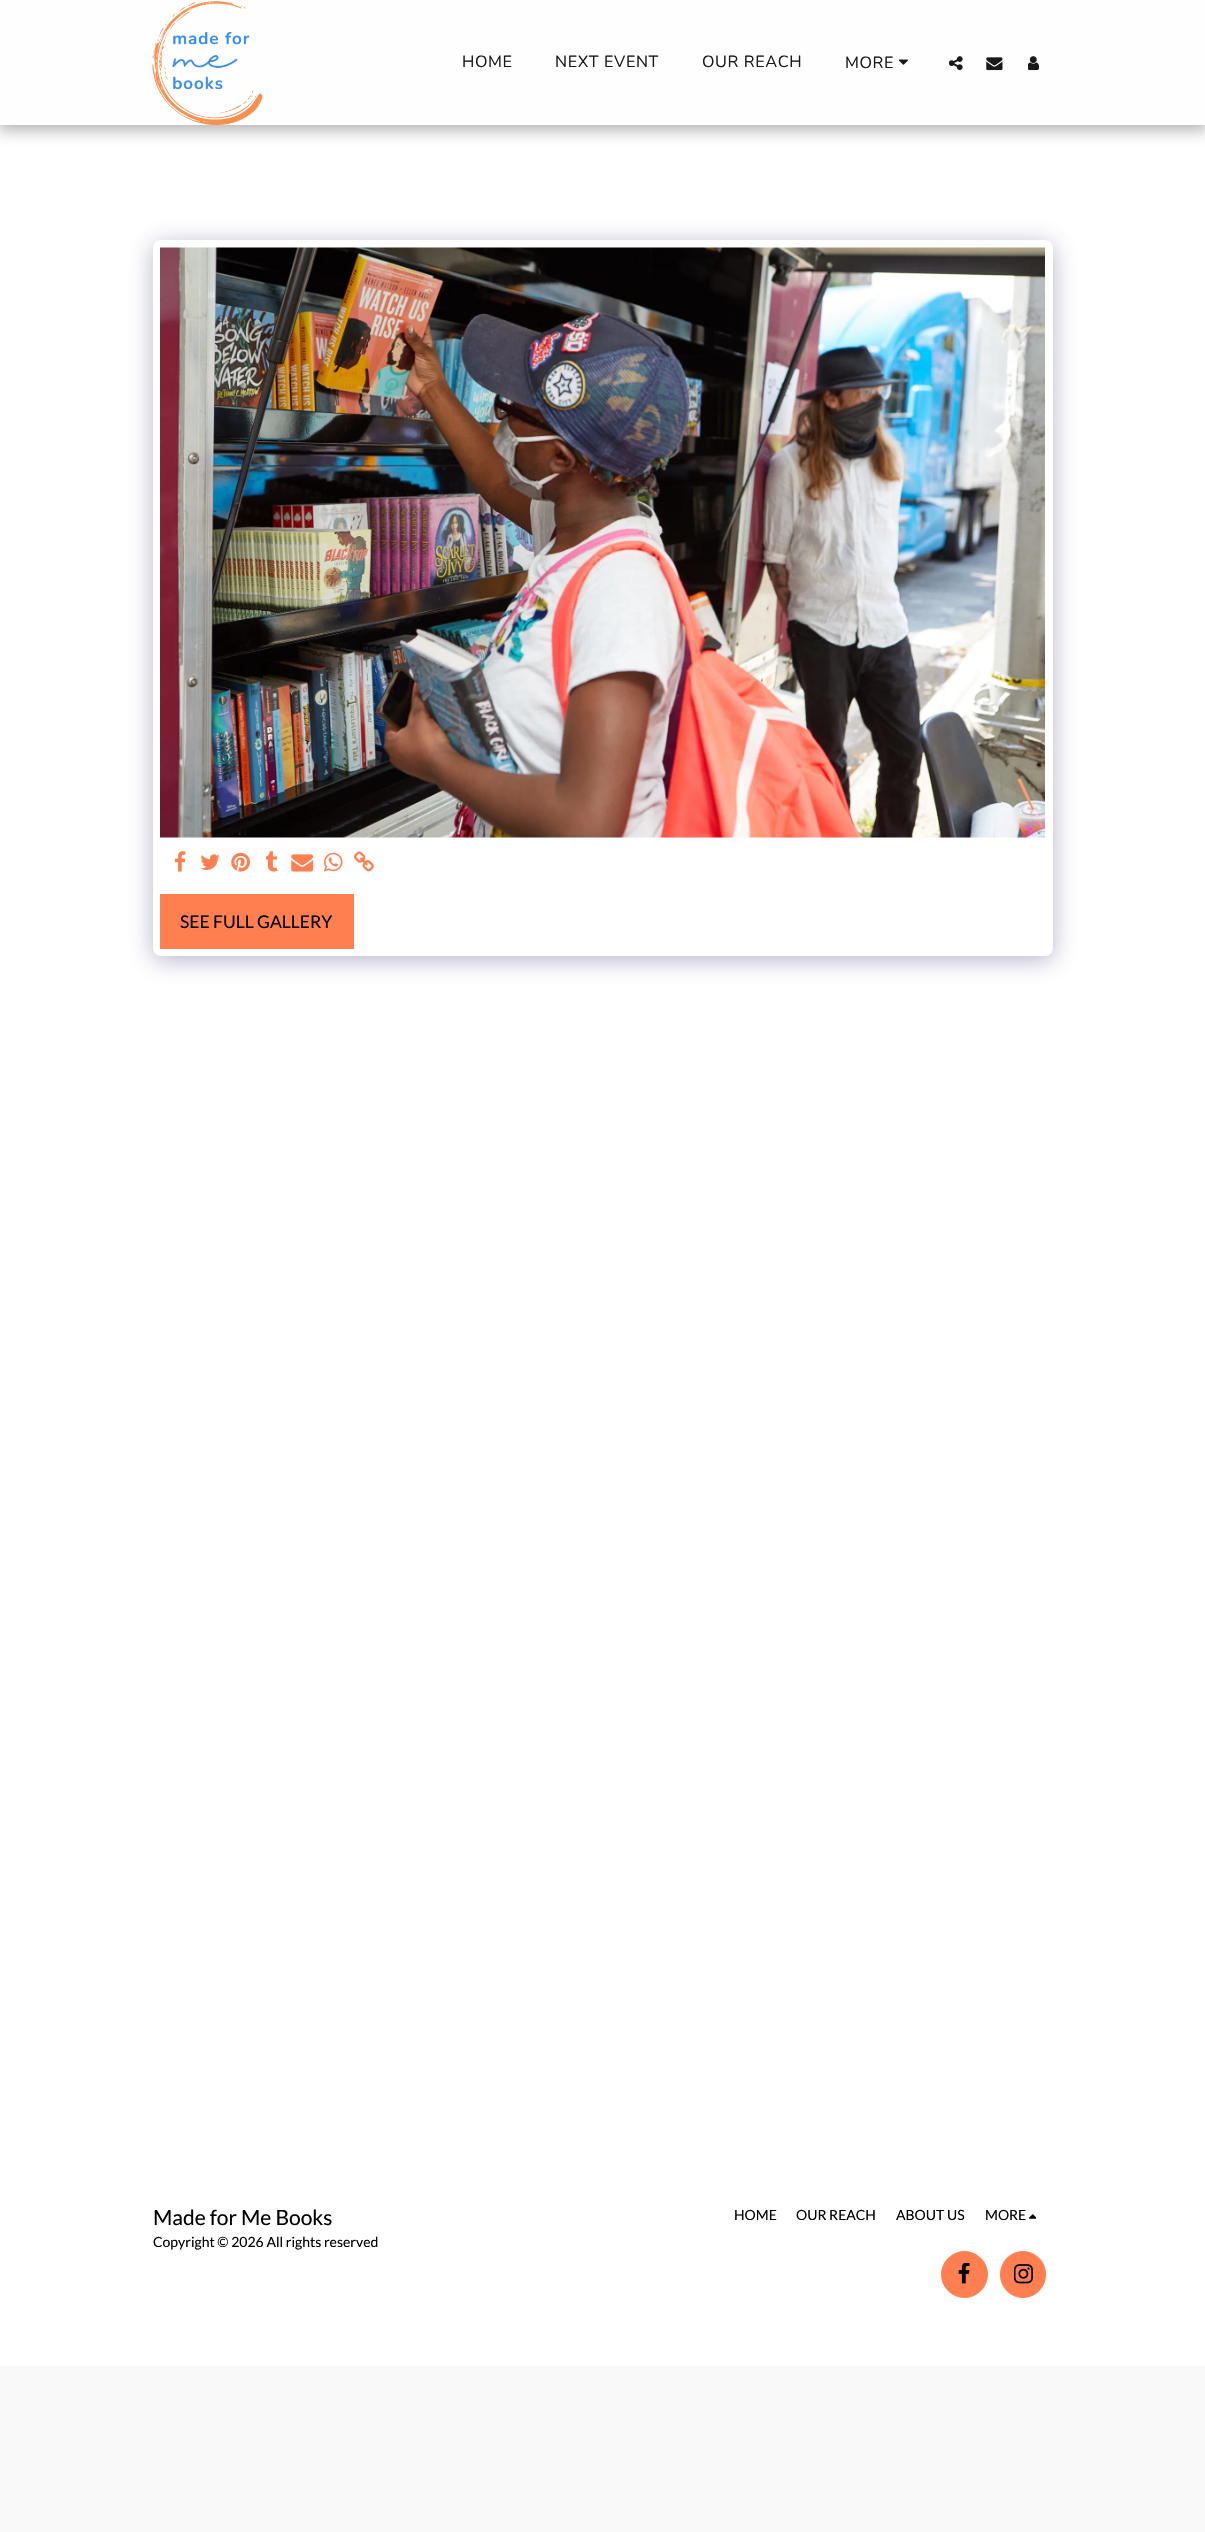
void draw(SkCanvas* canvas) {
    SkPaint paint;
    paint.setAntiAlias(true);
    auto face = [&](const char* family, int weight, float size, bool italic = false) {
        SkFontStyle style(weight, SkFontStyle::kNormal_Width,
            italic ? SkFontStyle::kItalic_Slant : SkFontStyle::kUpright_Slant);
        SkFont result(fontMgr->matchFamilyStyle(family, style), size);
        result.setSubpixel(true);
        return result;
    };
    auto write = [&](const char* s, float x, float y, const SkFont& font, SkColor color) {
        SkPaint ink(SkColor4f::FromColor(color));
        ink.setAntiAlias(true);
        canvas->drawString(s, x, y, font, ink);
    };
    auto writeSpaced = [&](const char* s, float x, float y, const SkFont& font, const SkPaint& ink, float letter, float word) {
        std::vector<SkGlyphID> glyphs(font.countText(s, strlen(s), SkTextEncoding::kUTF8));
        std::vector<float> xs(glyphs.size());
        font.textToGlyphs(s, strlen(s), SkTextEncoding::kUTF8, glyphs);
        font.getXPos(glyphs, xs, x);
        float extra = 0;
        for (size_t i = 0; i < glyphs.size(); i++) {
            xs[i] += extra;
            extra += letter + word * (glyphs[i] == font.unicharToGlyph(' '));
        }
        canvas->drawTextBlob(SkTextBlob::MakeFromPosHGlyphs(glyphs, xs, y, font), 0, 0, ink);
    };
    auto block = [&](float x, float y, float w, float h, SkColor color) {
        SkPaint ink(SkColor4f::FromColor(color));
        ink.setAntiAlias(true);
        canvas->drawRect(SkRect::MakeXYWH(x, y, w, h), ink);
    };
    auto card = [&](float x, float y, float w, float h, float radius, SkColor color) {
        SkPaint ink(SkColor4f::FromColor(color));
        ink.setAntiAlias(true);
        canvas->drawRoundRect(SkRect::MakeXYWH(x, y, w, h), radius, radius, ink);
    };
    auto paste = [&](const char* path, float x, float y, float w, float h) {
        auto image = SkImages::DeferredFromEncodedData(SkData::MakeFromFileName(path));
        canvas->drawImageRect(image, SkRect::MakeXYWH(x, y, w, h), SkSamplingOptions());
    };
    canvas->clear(SkColorSetRGB(249, 249, 249));
    block(0, 125, 1205, 2241, SK_ColorWHITE);
    paint.setColor(SkColorSetARGB(89, 26, 26, 26));
    paint.setMaskFilter(SkMaskFilter::MakeBlur(kNormal_SkBlurStyle, 7.5f));
    canvas->drawRect(SkRect::MakeXYWH(-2, 0, 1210, 130), paint);
    paint.setMaskFilter(nullptr);
    block(0, 0, 1205, 125, SkColorSetRGB(254, 254, 254));
    paste("pic1.png", 152, 1, 111, 124);
    auto kFont1 = face("Nunito", 400, 16.25f);
    paint.setColor(SkColorSetRGB(25, 25, 25));
    writeSpaced("HOME", 462, 67, kFont1, paint, 0.6f, 0);
    writeSpaced("NEXT EVENT", 555, 67, kFont1, paint, 0.6f, 0);
    writeSpaced("OUR REACH", 702, 67, kFont1, paint, 0.6f, 0);
    writeSpaced("MORE", 845, 68, kFont1, paint, 0.6f, 0);
    paste("pic2.png", 899, 59, 9, 6);
    paste("pic3.png", 949, 56, 14, 15);
    paste("pic4.png", 986, 57, 17, 14);
    paste("pic5.png", 1028, 56, 11, 15);
    paint.setColor(SkColorSetARGB(102, 77, 63, 122));
    paint.setMaskFilter(SkMaskFilter::MakeBlur(kNormal_SkBlurStyle, 12.5f));
    canvas->drawRoundRect(SkRect::MakeXYWH(153, 244, 900, 716), 8, 8, paint);
    paint.setMaskFilter(nullptr);
    card(153, 240, 900, 716, 8, SK_ColorWHITE);
    paste("pic6.png", 160, 247, 885, 591);
    paste("pic7.png", 174, 851, 12, 21);
    paste("pic8.png", 200, 854, 20, 16);
    paste("pic9.png", 231, 852, 19, 20);
    paste("pic10.png", 265, 851, 13, 21);
    paste("pic11.png", 291, 854, 23, 18);
    paste("pic12.png", 324, 852, 19, 20);
    paste("pic13.png", 354, 851, 20, 21);
    block(160, 894, 194, 55, SkColorSetRGB(255, 127, 80));
    auto kFont2 = face("Lato", 400, 17.5f);
    write("SEE FULL GALLERY", 180, 928, kFont2, SK_ColorBLACK);
    auto kFont3 = face("Lato", 400, 21);
    write("Made for Me Books", 153, 2225, kFont3, SK_ColorBLACK);
    auto kFont4 = face("Lato", 400, 14);
    write("Copyright © 2026 All rights reserved", 153, 2247, kFont4, SK_ColorBLACK);
    write("HOME", 734, 2220, kFont4, SK_ColorBLACK);
    write("OUR REACH", 796, 2220, kFont4, SK_ColorBLACK);
    write("ABOUT US", 896, 2220, kFont4, SK_ColorBLACK);
    write("MORE", 985, 2220, kFont4, SK_ColorBLACK);
    paste("pic14.png", 1029, 2214, 7, 5);
    paint.setColor(SkColorSetRGB(255, 127, 80));
    canvas->drawCircle(964.5f, 2274.5f, 23, paint);
    paint.setStyle(SkPaint::kStroke_Style);
    paint.setStrokeWidth(1);
    canvas->drawCircle(964.5f, 2274.5f, 23, paint);
    paste("pic15.png", 958, 2263, 12, 21);
    paint.setStyle(SkPaint::kFill_Style);
    canvas->drawRoundRect(SkRect::MakeXYWH(1000.5f, 2251.5f, 45, 46), 22.5f, 22.5f, paint);
    paint.setStyle(SkPaint::kStroke_Style);
    canvas->drawRoundRect(SkRect::MakeXYWH(1000.5f, 2251.5f, 45, 46), 22.5f, 22.5f, paint);
    paste("pic16.png", 1014, 2264, 19, 20);
}
